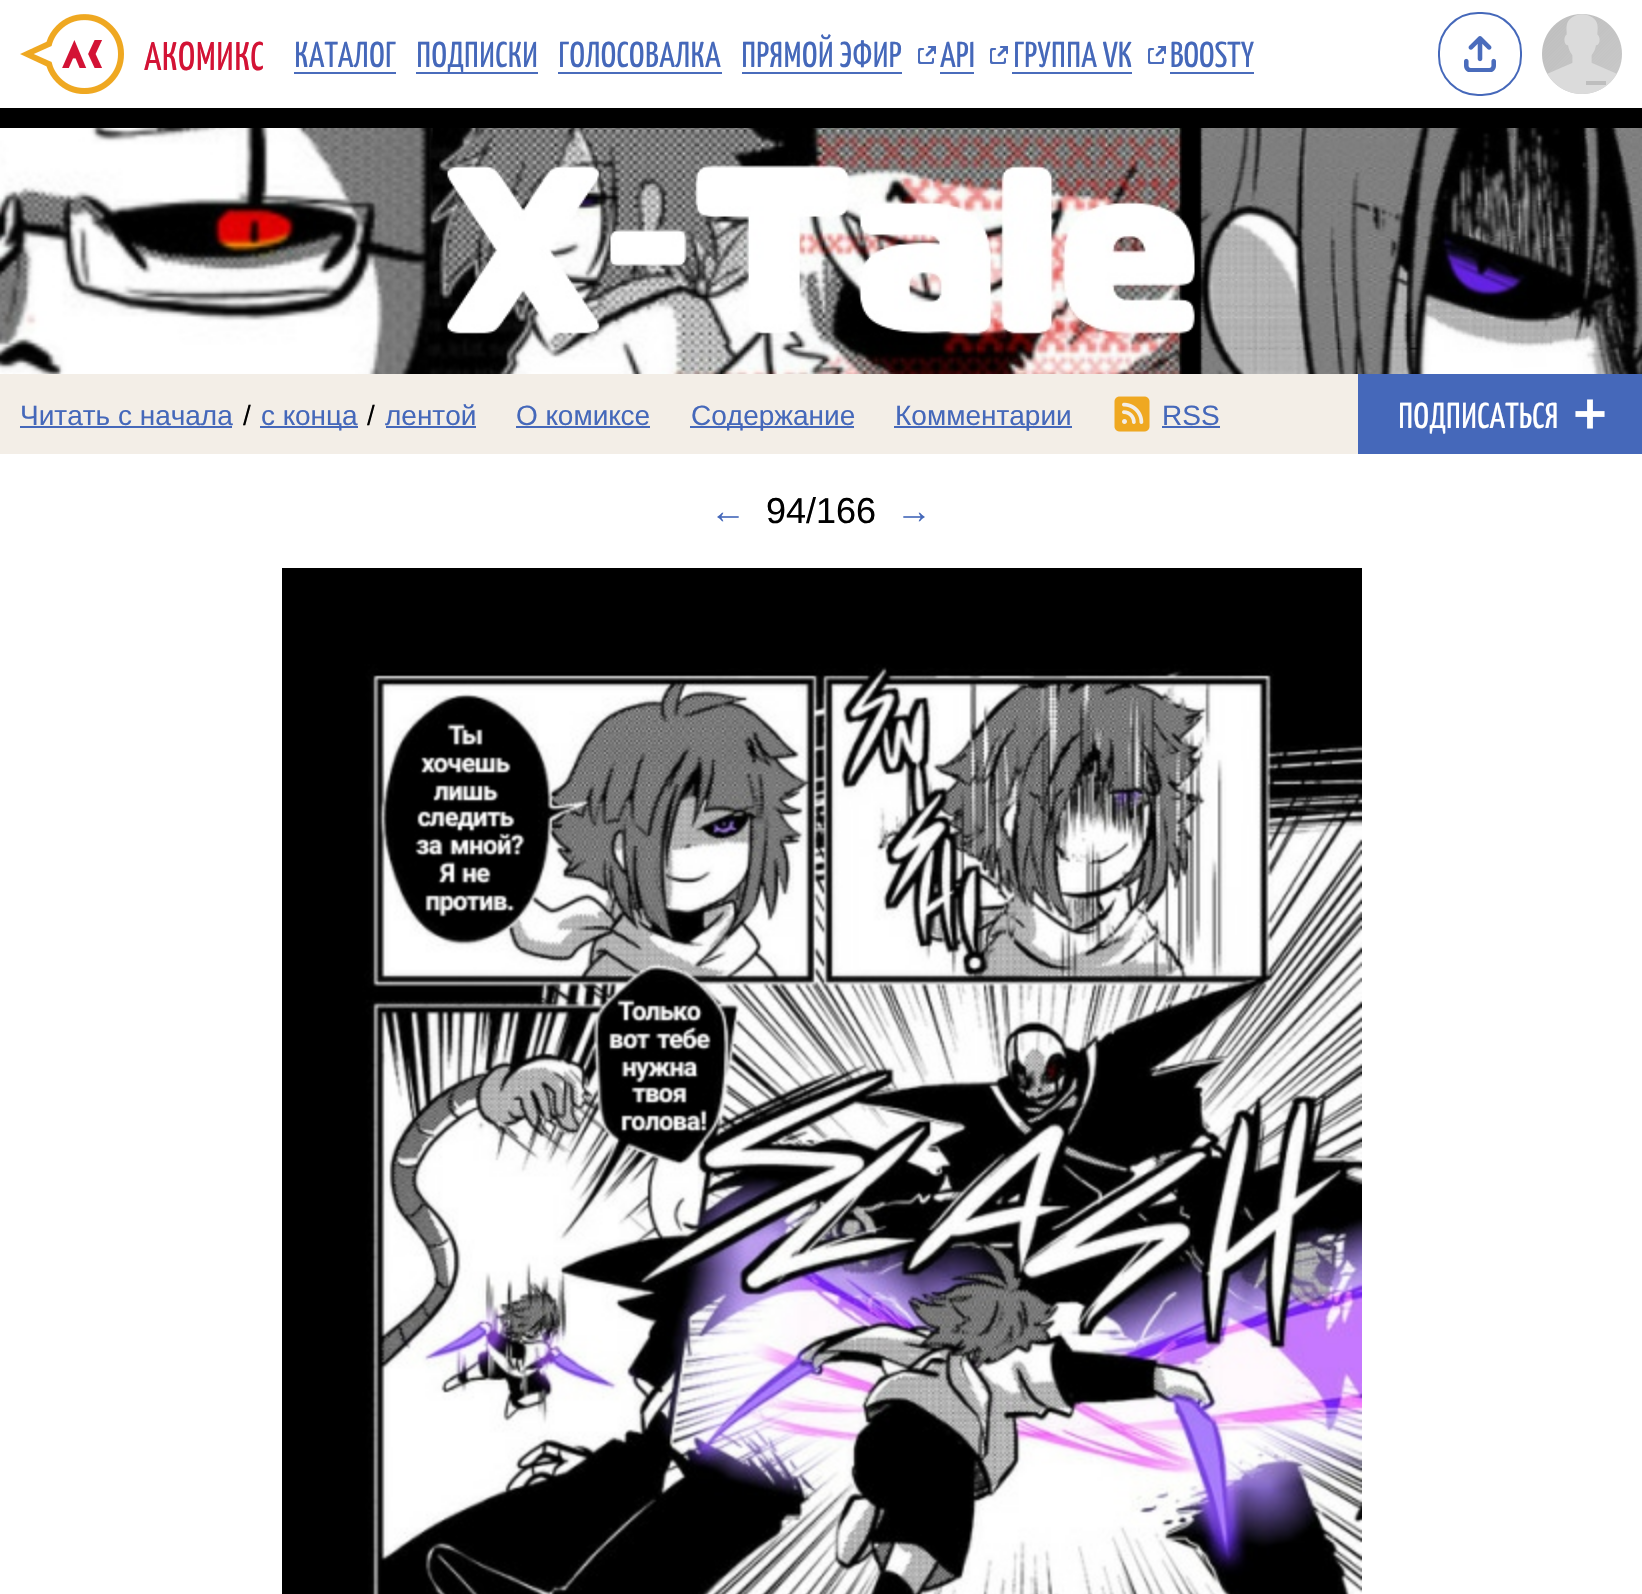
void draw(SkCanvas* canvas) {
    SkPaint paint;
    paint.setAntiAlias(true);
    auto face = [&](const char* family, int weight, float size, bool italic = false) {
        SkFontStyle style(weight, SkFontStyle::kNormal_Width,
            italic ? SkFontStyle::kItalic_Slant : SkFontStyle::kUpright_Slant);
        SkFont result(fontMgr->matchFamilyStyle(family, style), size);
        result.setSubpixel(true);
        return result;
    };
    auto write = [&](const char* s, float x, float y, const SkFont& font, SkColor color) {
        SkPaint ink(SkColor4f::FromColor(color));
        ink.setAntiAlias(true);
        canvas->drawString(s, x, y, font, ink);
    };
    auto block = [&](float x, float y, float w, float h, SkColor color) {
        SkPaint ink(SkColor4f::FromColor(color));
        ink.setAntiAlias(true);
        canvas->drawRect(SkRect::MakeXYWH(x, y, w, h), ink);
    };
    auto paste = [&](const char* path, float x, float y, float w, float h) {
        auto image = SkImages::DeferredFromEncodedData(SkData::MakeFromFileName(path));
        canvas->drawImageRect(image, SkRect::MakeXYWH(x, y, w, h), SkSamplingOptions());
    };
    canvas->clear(SK_ColorBLACK);
    block(0, 0, 1642, 108, SK_ColorWHITE);
    paste("pic1.png", 20, 14, 104, 80);
    auto kFont1 = face("Yanone Kaffeesatz", 400, 40);
    write("АКОМИКС", 144, 70, kFont1, SkColorSetRGB(211, 19, 53));
    auto kFont2 = face("Yanone Kaffeesatz", 400, 36);
    write("КАТАЛОГ", 294, 67, kFont2, SkColorSetRGB(69, 104, 186));
    block(294, 72, 102, 2, SkColorSetRGB(74, 108, 188));
    write("ПОДПИСКИ", 416, 67, kFont2, SkColorSetRGB(69, 104, 186));
    block(416, 72, 122, 2, SkColorSetRGB(74, 108, 188));
    write("ГОЛОСОВАЛКА", 558, 67, kFont2, SkColorSetRGB(69, 104, 186));
    block(558, 72, 164, 2, SkColorSetRGB(74, 108, 188));
    write("ПРЯМОЙ ЭФИР", 741, 67, kFont2, SkColorSetRGB(69, 104, 186));
    block(742, 72, 160, 2, SkColorSetRGB(74, 108, 188));
    paste("pic2.png", 918, 46, 18, 18);
    write("API", 940, 67, kFont2, SkColorSetRGB(69, 104, 186));
    block(940, 72, 34, 2, SkColorSetRGB(74, 108, 188));
    paste("pic2.png", 990, 46, 18, 18);
    write("ГРУППА VK", 1013, 67, kFont2, SkColorSetRGB(69, 104, 186));
    block(1012, 72, 120, 2, SkColorSetRGB(74, 108, 188));
    paste("pic2.png", 1148, 46, 18, 18);
    write("BOOSTY", 1170, 67, kFont2, SkColorSetRGB(69, 104, 186));
    block(1170, 72, 84, 2, SkColorSetRGB(74, 108, 188));
    paste("pic3.png", 1464, 36, 32, 36);
    paint.setStyle(SkPaint::kStroke_Style);
    paint.setStrokeWidth(2);
    paint.setColor(SkColorSetRGB(69, 104, 186));
    canvas->drawRoundRect(SkRect::MakeXYWH(1439, 13, 82, 82), 39, 39, paint);
    paste("pic4.png", 1542, 14, 80, 80);
    block(0, 454, 1642, 1140, SK_ColorWHITE);
    paste("pic5.png", 0, 128, 1642, 246);
    block(0, 374, 1358, 80, SkColorSetRGB(243, 238, 231));
    auto kFont3 = face("Liberation Sans", 400, 28);
    write("Читать с начала", 20, 425, kFont3, SkColorSetRGB(69, 104, 186));
    block(20, 426, 212, 2, SkColorSetRGB(69, 104, 186));
    write("/", 243, 425, kFont3, SK_ColorBLACK);
    block(260, 426, 98, 2, SkColorSetRGB(69, 104, 186));
    write("с конца", 261, 425, kFont3, SkColorSetRGB(69, 104, 186));
    write("/", 367, 425, kFont3, SK_ColorBLACK);
    write("лентой", 385, 425, kFont3, SkColorSetRGB(69, 104, 186));
    block(386, 426, 90, 2, SkColorSetRGB(69, 104, 186));
    write("О комиксе", 516, 425, kFont3, SkColorSetRGB(69, 104, 186));
    block(516, 426, 134, 2, SkColorSetRGB(69, 104, 186));
    block(690, 426, 164, 2, SkColorSetRGB(69, 104, 186));
    write("Содержание", 691, 425, kFont3, SkColorSetRGB(69, 104, 186));
    block(894, 426, 178, 2, SkColorSetRGB(69, 104, 186));
    write("Комментарии", 895, 425, kFont3, SkColorSetRGB(69, 104, 186));
    paste("pic6.png", 1114, 396, 36, 36);
    write("RSS", 1162, 425, kFont3, SkColorSetRGB(69, 104, 186));
    block(1162, 426, 58, 2, SkColorSetRGB(69, 104, 186));
    block(1358, 374, 284, 80, SkColorSetRGB(69, 104, 186));
    paste("pic7.png", 1575, 399, 30, 30);
    write("ПОДПИСАТЬСЯ", 1398, 428, kFont2, SK_ColorWHITE);
    auto kFont4 = face("Liberation Sans", 400, 36);
    write("←", 710, 523, kFont4, SkColorSetRGB(69, 104, 186));
    write("94/166", 766, 523, kFont4, SK_ColorBLACK);
    write("→", 896, 523, kFont4, SkColorSetRGB(69, 104, 186));
    paste("pic8.png", 282, 568, 1080, 1026);
}
